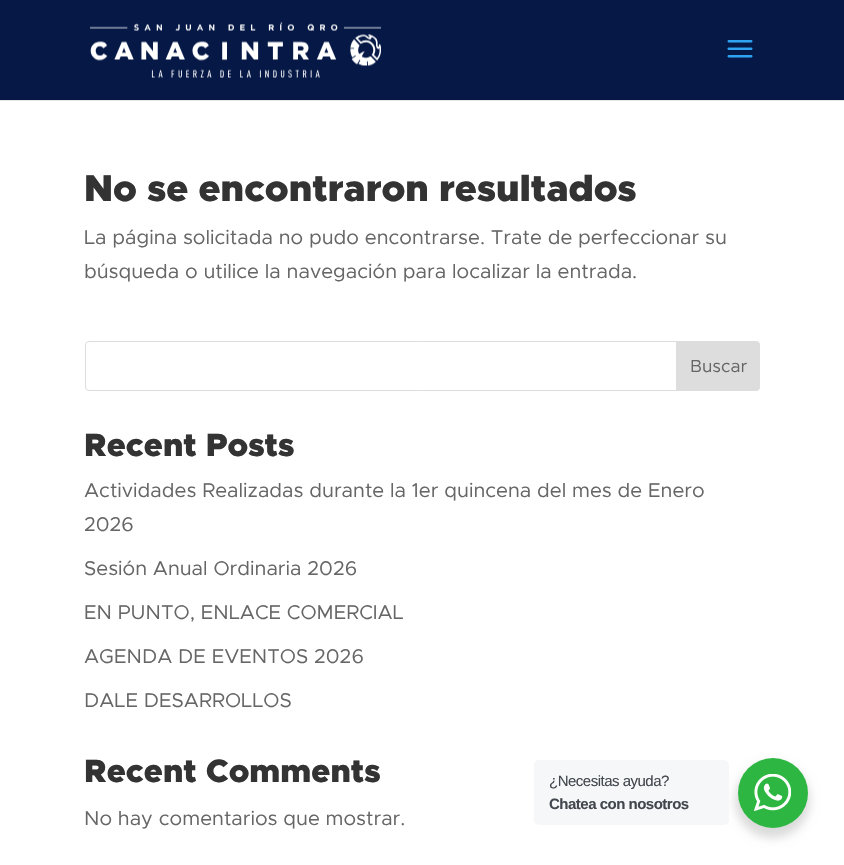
void draw(SkCanvas* canvas) {
    SkPaint paint;
    paint.setAntiAlias(true);
    auto face = [&](const char* family, int weight, float size, bool italic = false) {
        SkFontStyle style(weight, SkFontStyle::kNormal_Width,
            italic ? SkFontStyle::kItalic_Slant : SkFontStyle::kUpright_Slant);
        SkFont result(fontMgr->matchFamilyStyle(family, style), size);
        result.setSubpixel(true);
        return result;
    };
    auto write = [&](const char* s, float x, float y, const SkFont& font, SkColor color) {
        SkPaint ink(SkColor4f::FromColor(color));
        ink.setAntiAlias(true);
        canvas->drawString(s, x, y, font, ink);
    };
    auto writeSpaced = [&](const char* s, float x, float y, const SkFont& font, const SkPaint& ink, float letter, float word) {
        std::vector<SkGlyphID> glyphs(font.countText(s, strlen(s), SkTextEncoding::kUTF8));
        std::vector<float> xs(glyphs.size());
        font.textToGlyphs(s, strlen(s), SkTextEncoding::kUTF8, glyphs);
        font.getXPos(glyphs, xs, x);
        float extra = 0;
        for (size_t i = 0; i < glyphs.size(); i++) {
            xs[i] += extra;
            extra += letter + word * (glyphs[i] == font.unicharToGlyph(' '));
        }
        canvas->drawTextBlob(SkTextBlob::MakeFromPosHGlyphs(glyphs, xs, y, font), 0, 0, ink);
    };
    auto block = [&](float x, float y, float w, float h, SkColor color) {
        SkPaint ink(SkColor4f::FromColor(color));
        ink.setAntiAlias(true);
        canvas->drawRect(SkRect::MakeXYWH(x, y, w, h), ink);
    };
    auto card = [&](float x, float y, float w, float h, float radius, SkColor color) {
        SkPaint ink(SkColor4f::FromColor(color));
        ink.setAntiAlias(true);
        canvas->drawRoundRect(SkRect::MakeXYWH(x, y, w, h), radius, radius, ink);
    };
    auto paste = [&](const char* path, float x, float y, float w, float h) {
        auto image = SkImages::DeferredFromEncodedData(SkData::MakeFromFileName(path));
        canvas->drawImageRect(image, SkRect::MakeXYWH(x, y, w, h), SkSamplingOptions());
    };
    canvas->clear(SK_ColorWHITE);
    block(0, 100, 844, 1, SkColorSetRGB(230, 230, 230));
    block(0, 0, 844, 100, SkColorSetRGB(5, 24, 70));
    paste("pic1.png", 90, 22, 291, 56);
    paste("pic2.png", 727, 40, 26, 18);
    auto kFont1 = face("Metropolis", 900, 37.5f);
    write("No se encontraron resultados", 84, 201, kFont1, SkColorSetRGB(51, 51, 51));
    auto kFont2 = face("Metropolis", 400, 20);
    write("La página solicitada no pudo encontrarse. Trate de perfeccionar su", 84, 244, kFont2, SkColorSetRGB(102, 102, 102));
    write("búsqueda o utilice la navegación para localizar la entrada.", 84, 278, kFont2, SkColorSetRGB(102, 102, 102));
    paint.setStyle(SkPaint::kStroke_Style);
    paint.setStrokeWidth(1);
    paint.setColor(SkColorSetRGB(221, 221, 221));
    canvas->drawRoundRect(SkRect::MakeXYWH(85.5f, 341.5f, 674, 49), 3.5f, 3.5f, paint);
    paint.setStyle(SkPaint::kFill_Style);
    canvas->drawPath(SkPathBuilder().moveTo(676.5f, 341.5f).lineTo(756, 341.5f).cubicTo(758, 341.5f, 759.5f, 343, 759.5f, 345).lineTo(759.5f, 387).cubicTo(759.5f, 389, 758, 390.5f, 756, 390.5f).lineTo(676.5f, 390.5f).close().detach(), paint);
    paint.setStyle(SkPaint::kStroke_Style);
    canvas->drawPath(SkPathBuilder().moveTo(676.5f, 341.5f).lineTo(756, 341.5f).cubicTo(758, 341.5f, 759.5f, 343, 759.5f, 345).lineTo(759.5f, 387).cubicTo(759.5f, 389, 758, 390.5f, 756, 390.5f).lineTo(676.5f, 390.5f).close().detach(), paint);
    auto kFont3 = face("Metropolis", 400, 17.5f);
    write("Buscar", 690, 372, kFont3, SkColorSetRGB(102, 102, 102));
    auto kFont4 = face("Metropolis", 900, 32.5f);
    write("Recent Posts", 84, 456, kFont4, SkColorSetRGB(51, 51, 51));
    write("Actividades Realizadas durante la 1er quincena del mes de Enero", 84, 497, kFont2, SkColorSetRGB(102, 102, 102));
    write("2026", 84, 531, kFont2, SkColorSetRGB(102, 102, 102));
    write("Sesión Anual Ordinaria 2026", 84, 575, kFont2, SkColorSetRGB(102, 102, 102));
    write("EN PUNTO, ENLACE COMERCIAL", 84, 619, kFont2, SkColorSetRGB(102, 102, 102));
    write("AGENDA DE EVENTOS 2026", 84, 663, kFont2, SkColorSetRGB(102, 102, 102));
    write("DALE DESARROLLOS", 84, 707, kFont2, SkColorSetRGB(102, 102, 102));
    write("Recent Comments", 84, 782, kFont4, SkColorSetRGB(51, 51, 51));
    write("No hay comentarios que mostrar.", 84, 825, kFont2, SkColorSetRGB(102, 102, 102));
    paint.setStyle(SkPaint::kFill_Style);
    paint.setColor(SkColorSetARGB(36, 0, 0, 0));
    paint.setMaskFilter(SkMaskFilter::MakeBlur(kNormal_SkBlurStyle, 5));
    canvas->drawRoundRect(SkRect::MakeXYWH(735, 763, 75, 75), 37.5f, 37.5f, paint);
    paint.setMaskFilter(nullptr);
    card(534, 760, 195, 65, 5, SkColorSetRGB(245, 247, 249));
    auto kFont5 = face("Liberation Sans", 400, 15);
    paint.setColor(SkColorSetRGB(67, 71, 78));
    writeSpaced("¿Necesitas ayuda?", 549, 786, kFont5, paint, -0.5f, 0);
    auto kFont6 = face("Liberation Sans", 700, 15);
    writeSpaced("Chatea con nosotros", 549, 809, kFont6, paint, -0.5f, 0);
    paint.setColor(SkColorSetRGB(45, 183, 66));
    canvas->drawCircle(773, 793, 35, paint);
    paste("pic3.png", 754, 774, 37, 37);
}
